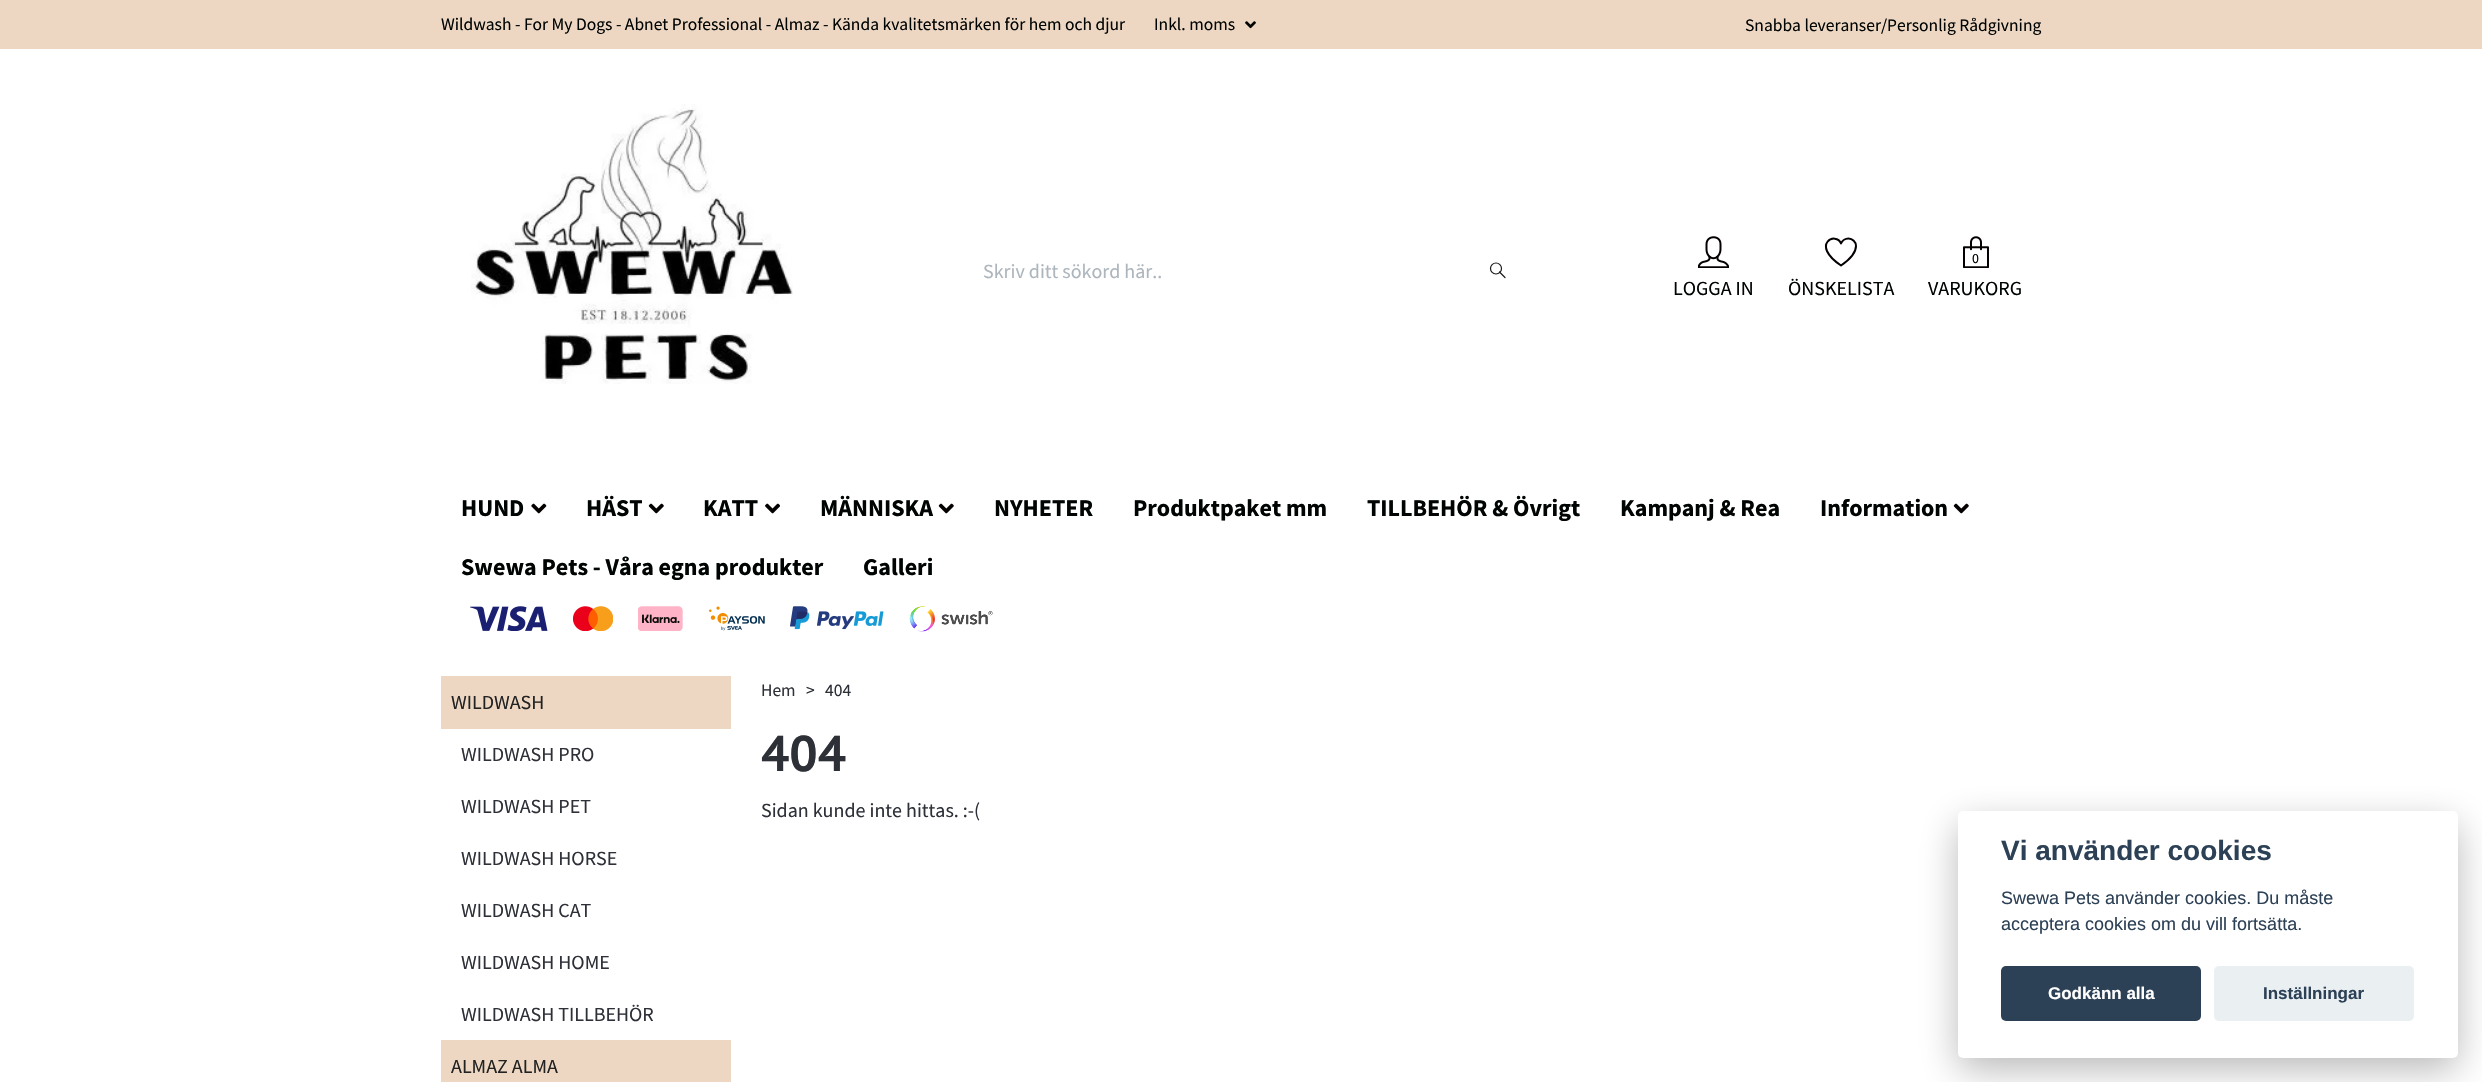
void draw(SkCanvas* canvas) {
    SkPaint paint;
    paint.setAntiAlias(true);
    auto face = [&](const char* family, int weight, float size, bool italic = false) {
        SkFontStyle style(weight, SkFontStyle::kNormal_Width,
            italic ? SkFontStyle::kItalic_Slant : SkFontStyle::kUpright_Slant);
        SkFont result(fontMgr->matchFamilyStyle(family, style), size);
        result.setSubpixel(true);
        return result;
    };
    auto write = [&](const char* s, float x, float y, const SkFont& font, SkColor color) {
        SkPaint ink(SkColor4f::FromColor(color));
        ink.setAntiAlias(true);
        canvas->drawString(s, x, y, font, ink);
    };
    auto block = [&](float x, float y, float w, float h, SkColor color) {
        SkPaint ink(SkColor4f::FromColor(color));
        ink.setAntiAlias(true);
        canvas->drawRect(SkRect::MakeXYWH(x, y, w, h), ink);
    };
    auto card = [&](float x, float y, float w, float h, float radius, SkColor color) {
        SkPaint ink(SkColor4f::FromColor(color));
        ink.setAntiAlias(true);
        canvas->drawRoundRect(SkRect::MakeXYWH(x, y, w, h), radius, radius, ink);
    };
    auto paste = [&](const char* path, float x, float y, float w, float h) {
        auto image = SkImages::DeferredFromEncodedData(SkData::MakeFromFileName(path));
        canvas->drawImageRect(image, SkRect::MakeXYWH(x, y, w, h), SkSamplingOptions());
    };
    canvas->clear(SK_ColorWHITE);
    block(0, 0, 2482, 49, SkColorSetRGB(237, 215, 194));
    auto kFont1 = face("Source Sans Pro", 400, 17.5f);
    write("Wildwash - For My Dogs - Abnet Professional - Almaz - Kända kvalitetsmärken för hem och djur", 441, 30, kFont1, SkColorSetRGB(0, 4, 3));
    write("Inkl. moms", 1154, 30, kFont1, SkColorSetRGB(0, 4, 3));
    paste("pic1.png", 1245, 21, 11, 8);
    write("Snabba leveranser/Personlig Rådgivning", 1745, 31, kFont1, SkColorSetRGB(0, 4, 3));
    paste("pic2.png", 471, 104, 322, 280);
    auto kFont2 = face("Source Sans Pro", 400, 20);
    write("Skriv ditt sökord här..", 983, 278, kFont2, SkColorSetRGB(173, 181, 189));
    paint.setStyle(SkPaint::kStroke_Style);
    paint.setStrokeWidth(1.2f);
    paint.setStrokeCap(SkPaint::kRound_Cap);
    paint.setStrokeJoin(SkPaint::kRound_Join);
    paint.setColor(SkColorSetRGB(29, 26, 26));
    canvas->drawPath(SkPathBuilder().moveTo(1499.5f, 272).lineTo(1505, 277.5f).detach(), paint);
    paint.setStrokeCap(SkPaint::kButt_Cap);
    paint.setStrokeJoin(SkPaint::kMiter_Join);
    canvas->drawCircle(1496, 268.5f, 5.5f, paint);
    paste("pic3.png", 1698, 236, 31, 32);
    write("LOGGA IN", 1673, 295, kFont2, SkColorSetRGB(0, 4, 3));
    paint.setStrokeWidth(2);
    paint.setStrokeCap(SkPaint::kRound_Cap);
    paint.setStrokeJoin(SkPaint::kRound_Join);
    paint.setColor(SkColorSetRGB(4, 0, 0));
    canvas->drawPath(SkPathBuilder().moveTo(1848.5f, 238.5f).cubicTo(1845, 238.5f, 1842, 241, 1841, 243.5f).cubicTo(1836.5f, 231, 1809.5f, 244, 1841, 265.5f).cubicTo(1850.5f, 259, 1856, 252.5f, 1856, 246).cubicTo(1856, 242, 1852.5f, 238.5f, 1848.5f, 238.5f).close().detach(), paint);
    write("ÖNSKELISTA", 1788, 295, kFont2, SkColorSetRGB(0, 4, 3));
    paste("pic4.png", 1963, 236, 26, 32);
    auto kFont3 = face("Source Sans Pro", 400, 14);
    write("0", 1972, 263, kFont3, SkColorSetRGB(0, 4, 3));
    write("VARUKORG", 1928, 295, kFont2, SkColorSetRGB(0, 4, 3));
    auto kFont4 = face("Source Sans Pro", 700, 24);
    write("HUND", 461, 516, kFont4, SkColorSetRGB(0, 4, 3));
    paste("pic5.png", 531, 503, 16, 11);
    write("HÄST", 586, 516, kFont4, SkColorSetRGB(0, 4, 3));
    paste("pic6.png", 648, 503, 16, 11);
    write("KATT", 703, 516, kFont4, SkColorSetRGB(0, 4, 3));
    paste("pic7.png", 765, 503, 15, 11);
    write("MÄNNISKA", 820, 516, kFont4, SkColorSetRGB(0, 4, 3));
    paste("pic6.png", 938, 503, 16, 11);
    write("NYHETER", 994, 516, kFont4, SkColorSetRGB(0, 4, 3));
    write("Produktpaket mm", 1133, 516, kFont4, SkColorSetRGB(0, 4, 3));
    write("TILLBEHÖR & Övrigt", 1367, 516, kFont4, SkColorSetRGB(0, 4, 3));
    write("Kampanj & Rea", 1620, 516, kFont4, SkColorSetRGB(0, 4, 3));
    write("Information", 1820, 516, kFont4, SkColorSetRGB(0, 4, 3));
    paste("pic6.png", 1953, 503, 16, 11);
    write("Swewa Pets - Våra egna produkter", 461, 575, kFont4, SkColorSetRGB(0, 4, 3));
    write("Galleri", 863, 575, kFont4, SkColorSetRGB(0, 4, 3));
    paste("pic8.png", 470, 606, 78, 25);
    paste("pic9.png", 573, 606, 40, 25);
    paste("pic10.png", 638, 606, 45, 25);
    paste("pic11.png", 709, 606, 56, 25);
    paste("pic12.png", 790, 606, 94, 24);
    paste("pic13.png", 909, 606, 84, 26);
    block(441, 676, 290, 53, SkColorSetRGB(237, 215, 194));
    write("WILDWASH", 451, 709, kFont2, SkColorSetRGB(34, 34, 34));
    write("WILDWASH PRO", 461, 761, kFont2, SkColorSetRGB(46, 48, 56));
    write("WILDWASH PET", 461, 813, kFont2, SkColorSetRGB(46, 48, 56));
    write("WILDWASH HORSE", 461, 865, kFont2, SkColorSetRGB(46, 48, 56));
    write("WILDWASH CAT", 461, 917, kFont2, SkColorSetRGB(46, 48, 56));
    write("WILDWASH HOME", 461, 969, kFont2, SkColorSetRGB(46, 48, 56));
    write("WILDWASH TILLBEHÖR", 461, 1021, kFont2, SkColorSetRGB(46, 48, 56));
    block(441, 1040, 290, 42, SkColorSetRGB(237, 215, 194));
    write("ALMAZ ALMA", 451, 1073, kFont2, SkColorSetRGB(34, 34, 34));
    write("Hem", 761, 696, kFont1, SkColorSetRGB(46, 48, 56));
    write(">", 806, 696, kFont1, SkColorSetRGB(46, 48, 56));
    write("404", 825, 696, kFont1, SkColorSetRGB(46, 48, 56));
    auto kFont5 = face("PT Sans", 700, 50);
    write("404", 761, 771, kFont5, SkColorSetRGB(46, 48, 56));
    write("Sidan kunde inte hittas. :-(", 761, 817, kFont2, SkColorSetRGB(46, 48, 56));
    paint.setStyle(SkPaint::kFill_Style);
    paint.setColor(SkColorSetARGB(71, 2, 2, 3));
    paint.setMaskFilter(SkMaskFilter::MakeBlur(kNormal_SkBlurStyle, 19));
    canvas->drawRoundRect(SkRect::MakeXYWH(1958, 824, 500, 246), 5, 5, paint);
    paint.setMaskFilter(nullptr);
    card(1958, 811, 500, 247, 5, SK_ColorWHITE);
    auto kFont6 = face("Liberation Sans", 700, 28);
    write("Vi använder cookies", 2001, 860, kFont6, SkColorSetRGB(45, 65, 86));
    auto kFont7 = face("Liberation Sans", 400, 18);
    write("Swewa Pets använder cookies. Du måste", 2001, 904, kFont7, SkColorSetRGB(45, 65, 86));
    write("acceptera cookies om du vill fortsätta.", 2001, 930, kFont7, SkColorSetRGB(45, 65, 86));
    card(2001, 966, 200, 55, 5, SkColorSetRGB(45, 65, 86));
    auto kFont8 = face("Liberation Sans", 700, 17);
    write("Godkänn alla", 2048, 999, kFont8, SK_ColorWHITE);
    card(2214, 966, 200, 55, 5, SkColorSetRGB(234, 239, 242));
    write("Inställningar", 2263, 999, kFont8, SkColorSetRGB(45, 65, 86));
}
